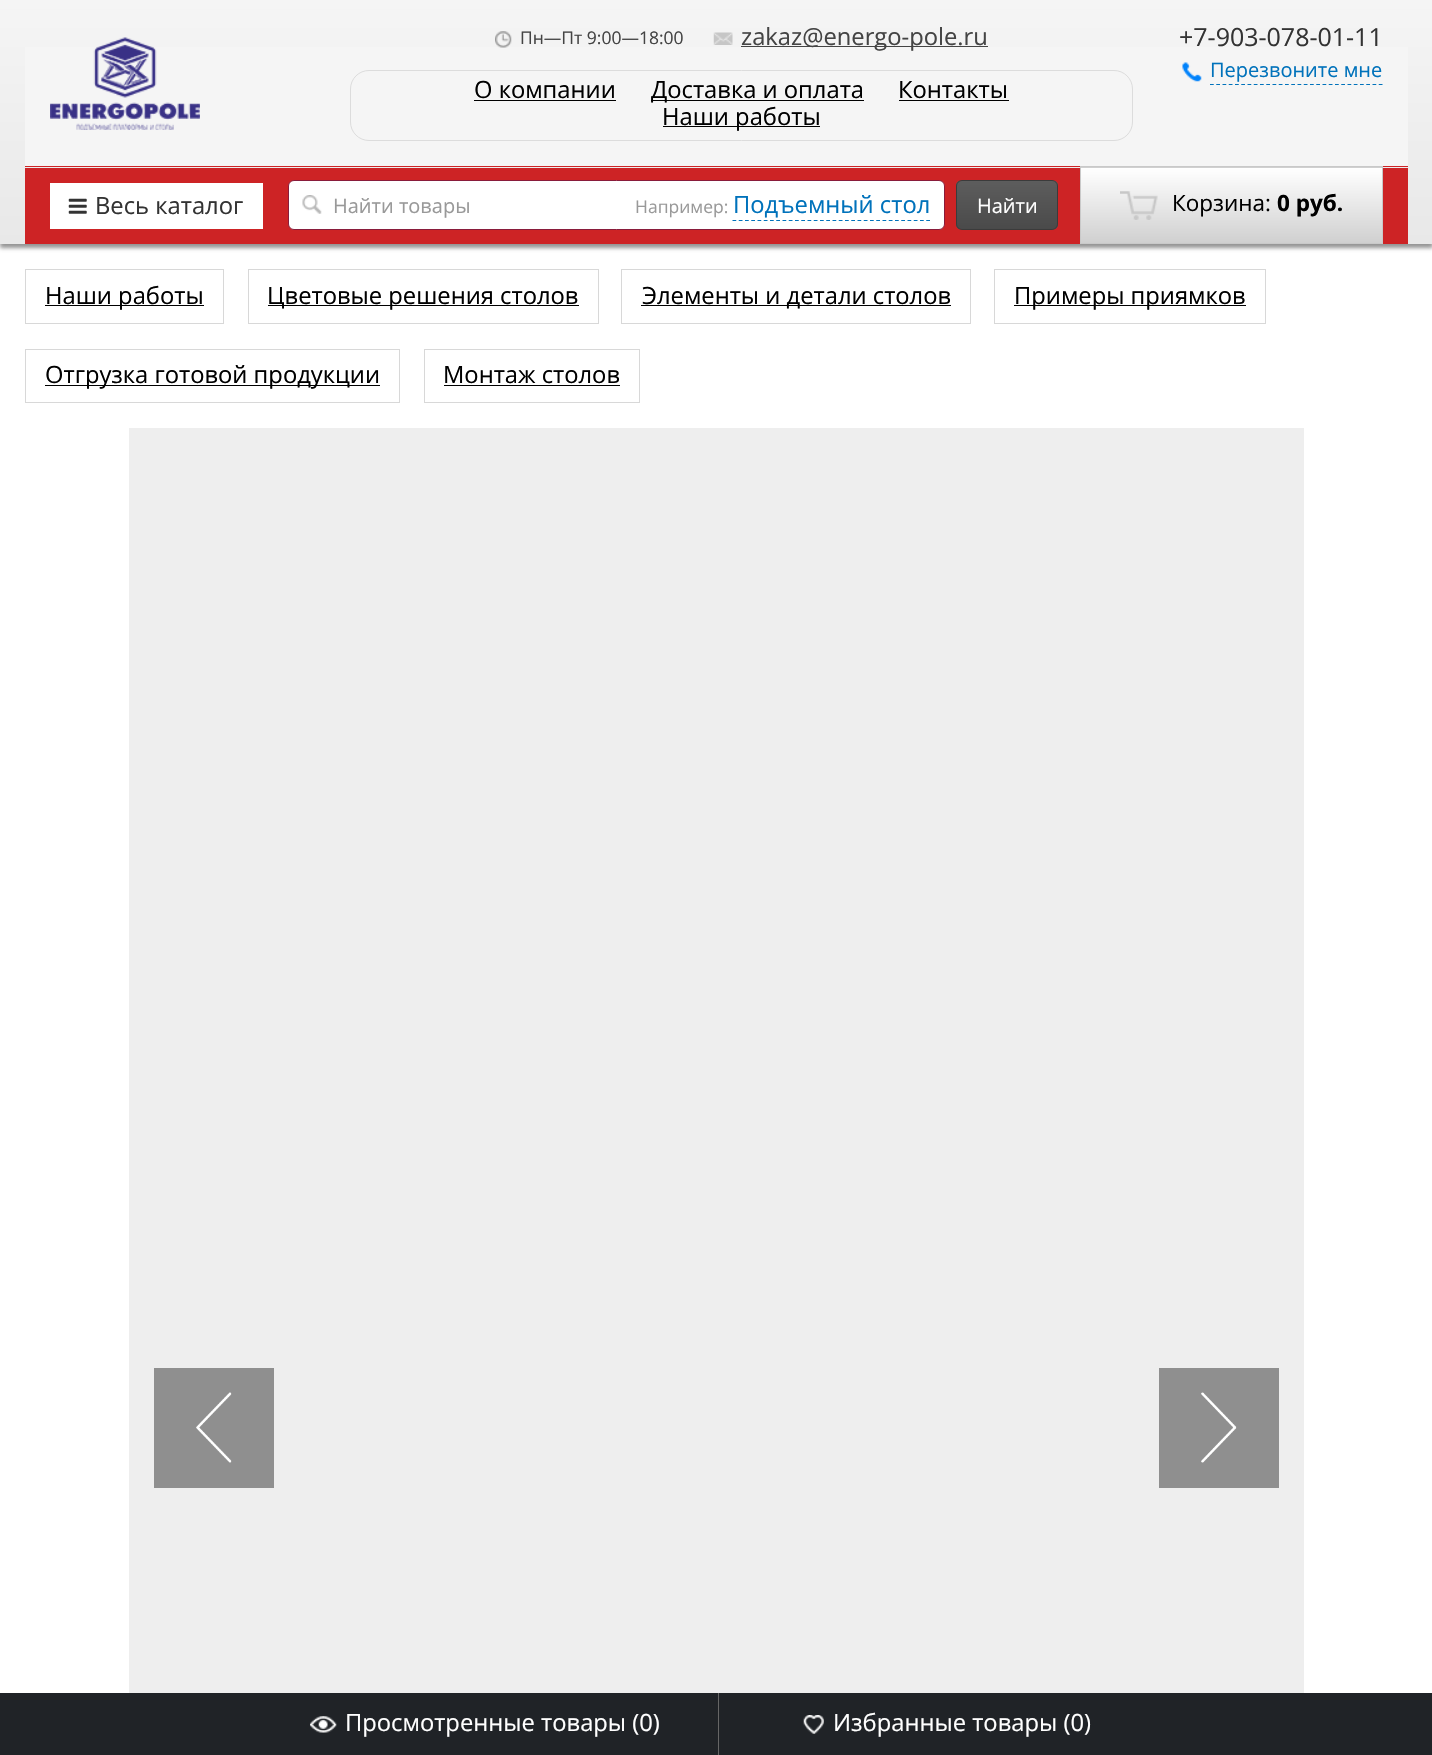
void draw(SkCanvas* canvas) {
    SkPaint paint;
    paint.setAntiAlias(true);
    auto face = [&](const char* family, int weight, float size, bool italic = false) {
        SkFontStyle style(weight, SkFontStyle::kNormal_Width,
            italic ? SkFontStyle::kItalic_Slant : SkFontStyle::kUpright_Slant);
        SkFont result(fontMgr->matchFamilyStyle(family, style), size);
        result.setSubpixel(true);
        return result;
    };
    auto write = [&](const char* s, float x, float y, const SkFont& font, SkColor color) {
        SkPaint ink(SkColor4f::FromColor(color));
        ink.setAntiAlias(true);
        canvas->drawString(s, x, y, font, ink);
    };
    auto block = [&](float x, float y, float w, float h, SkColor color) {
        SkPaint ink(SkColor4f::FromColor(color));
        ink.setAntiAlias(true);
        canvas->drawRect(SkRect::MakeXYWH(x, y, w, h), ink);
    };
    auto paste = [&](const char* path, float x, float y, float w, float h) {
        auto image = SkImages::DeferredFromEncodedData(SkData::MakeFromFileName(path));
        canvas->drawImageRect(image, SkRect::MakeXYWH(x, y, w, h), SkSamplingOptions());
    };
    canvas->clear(SK_ColorWHITE);
    paint.setColor(SkColorSetARGB(179, 102, 102, 102));
    paint.setMaskFilter(SkMaskFilter::MakeBlur(kNormal_SkBlurStyle, 2));
    canvas->drawRect(SkRect::MakeXYWH(0, 4, 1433, 244), paint);
    paint.setMaskFilter(nullptr);
    {
        const SkColor colors[] = {SkColorSetRGB(245, 245, 245), SkColorSetRGB(232, 232, 232)};
        const float stops[] = {0, 1};
        const SkPoint ends[] = {{716, 0}, {716, 244}};
        paint.setShader(SkGradientShader::MakeLinear(ends, colors, stops, 2, SkTileMode::kClamp));
        paint.setAlpha(255);
    }
    canvas->drawRect(SkRect::MakeXYWH(0, 0, 1432, 244), paint);
    block(25, 47, 1383, 119, SkColorSetRGB(245, 245, 245));
    paste("pic1.png", 50, 37, 150, 93);
    paste("pic2.png", 495, 31, 17, 17);
    auto kFont1 = face("Open Sans", 400, 17.5f);
    write("Пн—Пт 9:00—18:00", 520, 44, kFont1, SkColorSetRGB(68, 68, 68));
    paste("pic3.png", 713, 32, 20, 13);
    block(741, 46, 247, 1, SkColorSetRGB(68, 68, 68));
    auto kFont2 = face("Open Sans", 400, 23.75f);
    write("zakaz@energo-pole.ru", 741, 45, kFont2, SkColorSetRGB(68, 68, 68));
    paint.setStyle(SkPaint::kStroke_Style);
    paint.setStrokeWidth(1);
    paint.setShader(nullptr);
    paint.setColor(SkColorSetRGB(220, 220, 220));
    canvas->drawRoundRect(SkRect::MakeXYWH(350.5f, 70.5f, 782, 70), 18.5f, 18.5f, paint);
    write("О компании", 474, 98, kFont2, SK_ColorBLACK);
    block(474, 100, 142, 1, SK_ColorBLACK);
    block(651, 100, 213, 1, SK_ColorBLACK);
    write("Доставка и оплата", 651, 98, kFont2, SK_ColorBLACK);
    write("Контакты", 898, 98, kFont2, SK_ColorBLACK);
    block(899, 100, 110, 1, SK_ColorBLACK);
    block(663, 126, 157, 1, SK_ColorBLACK);
    write("Наши работы", 662, 125, kFont2, SK_ColorBLACK);
    auto kFont3 = face("Open Sans", 400, 25);
    write("+7-903-078-01-11", 1179, 46, kFont3, SkColorSetRGB(51, 51, 51));
    paste("pic4.png", 1182, 62, 20, 20);
    auto kFont4 = face("Open Sans", 400, 20);
    write("Перезвоните мне", 1210, 77, kFont4, SkColorSetRGB(0, 114, 187));
    paint.setStrokeWidth(1.2f);
    paint.setColor(SkColorSetRGB(0, 114, 187));
    paint.setPathEffect(SkDashPathEffect::Make({{3.75f, 2.5f}}, 0));
    canvas->drawPath(SkPathBuilder().moveTo(1210, 84.5f).lineTo(1382.5f, 84.5f).detach(), paint);
    paint.setPathEffect(nullptr);
    block(25, 168, 1383, 76, SkColorSetRGB(205, 35, 37));
    block(25, 166, 1383, 1, SkColorSetRGB(205, 35, 37));
    block(50, 183, 213, 46, SK_ColorWHITE);
    paste("pic5.png", 68, 198, 19, 16);
    write("Весь каталог", 95, 214, kFont2, SkColorSetRGB(51, 51, 51));
    paint.setStyle(SkPaint::kFill_Style);
    paint.setColor(SK_ColorWHITE);
    canvas->drawRoundRect(SkRect::MakeXYWH(288.5f, 180.5f, 656, 49), 5.5f, 5.5f, paint);
    paint.setStyle(SkPaint::kStroke_Style);
    paint.setStrokeWidth(1);
    paint.setColor(SkColorSetRGB(137, 28, 59));
    canvas->drawRoundRect(SkRect::MakeXYWH(288.5f, 180.5f, 656, 49), 5.5f, 5.5f, paint);
    paste("pic6.png", 302, 195, 20, 19);
    write("Найти товары", 333, 213, kFont4, SkColorSetRGB(153, 153, 153));
    write("Например:", 635, 213, kFont1, SkColorSetRGB(153, 153, 153));
    write("Подъемный стол", 733, 213, kFont2, SkColorSetRGB(0, 114, 187));
    paint.setStrokeWidth(1.2f);
    paint.setColor(SkColorSetRGB(0, 114, 187));
    paint.setPathEffect(SkDashPathEffect::Make({{3.75f, 2.5f}}, 0));
    canvas->drawPath(SkPathBuilder().moveTo(732.5f, 220.5f).lineTo(930, 220.5f).detach(), paint);
    paint.setPathEffect(nullptr);
    canvas->save();
    canvas->clipPath(SkPathBuilder().moveTo(962, 180).lineTo(1052, 180).cubicTo(1055.5f, 180, 1058, 182.5f, 1058, 186).lineTo(1058, 224).cubicTo(1058, 227.5f, 1055.5f, 230, 1052, 230).lineTo(962, 230).cubicTo(958.5f, 230, 956, 227.5f, 956, 224).lineTo(956, 186).cubicTo(956, 182.5f, 958.5f, 180, 962, 180).close().detach(), true);
    paint.setStyle(SkPaint::kFill_Style);
    {
        const SkColor colors[] = {SkColorSetRGB(93, 93, 93), SkColorSetRGB(74, 74, 74)};
        const float stops[] = {0, 1};
        const SkPoint ends[] = {{1007, 181}, {1007, 229}};
        paint.setShader(SkGradientShader::MakeLinear(ends, colors, stops, 2, SkTileMode::kClamp));
        paint.setAlpha(255);
    }
    canvas->drawRect(SkRect::MakeXYWH(956, 181, 102, 48), paint);
    canvas->restore();
    paint.setStyle(SkPaint::kStroke_Style);
    paint.setStrokeWidth(1);
    paint.setShader(nullptr);
    paint.setColor(SkColorSetRGB(59, 59, 59));
    canvas->drawRoundRect(SkRect::MakeXYWH(956.5f, 180.5f, 101, 49), 5.5f, 5.5f, paint);
    write("Найти", 977, 213, kFont4, SK_ColorWHITE);
    paint.setStyle(SkPaint::kFill_Style);
    {
        const SkColor colors[] = {SK_ColorWHITE, SkColorSetRGB(208, 208, 208)};
        const float stops[] = {0, 1};
        const SkPoint ends[] = {{1231, 92}, {1231, 168}};
        paint.setShader(SkGradientShader::MakeLinear(ends, colors, stops, 2, SkTileMode::kClamp));
        paint.setAlpha(255);
    }
    canvas->drawRect(SkRect::MakeXYWH(1080, 167, 303, 1), paint);
    {
        const SkColor colors[] = {SK_ColorWHITE, SkColorSetRGB(208, 208, 208)};
        const float stops[] = {0, 1};
        const SkPoint ends[] = {{1231, 168}, {1231, 243}};
        paint.setShader(SkGradientShader::MakeLinear(ends, colors, stops, 2, SkTileMode::kClamp));
        paint.setAlpha(255);
    }
    canvas->drawRect(SkRect::MakeXYWH(1081, 168, 301, 75), paint);
    paint.setStyle(SkPaint::kStroke_Style);
    paint.setShader(nullptr);
    paint.setColor(SkColorSetRGB(201, 201, 201));
    canvas->drawRect(SkRect::MakeXYWH(1080.5f, 166.5f, 302, 77), paint);
    paste("pic7.png", 1120, 191, 38, 29);
    auto kFont5 = face("Open Sans", 400, 22.5f);
    write("Корзина:", 1172, 211, kFont5, SK_ColorBLACK);
    auto kFont6 = face("Open Sans", 700, 22.5f);
    write("0 руб.", 1277, 211, kFont6, SK_ColorBLACK);
    paint.setColor(SkColorSetRGB(216, 216, 216));
    canvas->drawRect(SkRect::MakeXYWH(25.5f, 269.5f, 198, 54), paint);
    block(45, 305, 159, 1, SK_ColorBLACK);
    write("Наши работы", 45, 304, kFont2, SK_ColorBLACK);
    canvas->drawRect(SkRect::MakeXYWH(248.5f, 269.5f, 350, 54), paint);
    block(268, 305, 311, 1, SK_ColorBLACK);
    write("Цветовые решения столов", 267, 304, kFont2, SK_ColorBLACK);
    canvas->drawRect(SkRect::MakeXYWH(621.5f, 269.5f, 349, 54), paint);
    block(641, 305, 310, 1, SK_ColorBLACK);
    write("Элементы и детали столов", 642, 304, kFont2, SK_ColorBLACK);
    canvas->drawRect(SkRect::MakeXYWH(994.5f, 269.5f, 271, 54), paint);
    block(1014, 305, 232, 1, SK_ColorBLACK);
    write("Примеры приямков", 1014, 304, kFont2, SK_ColorBLACK);
    canvas->drawRect(SkRect::MakeXYWH(25.5f, 349.5f, 374, 53), paint);
    block(45, 385, 335, 1, SK_ColorBLACK);
    write("Отгрузка готовой продукции", 45, 383, kFont2, SK_ColorBLACK);
    canvas->drawRect(SkRect::MakeXYWH(424.5f, 349.5f, 215, 53), paint);
    write("Монтаж столов", 443, 383, kFont2, SK_ColorBLACK);
    block(444, 385, 176, 1, SK_ColorBLACK);
    block(129, 428, 1175, 1265, SkColorSetRGB(238, 238, 238));
    block(154, 1368, 120, 120, SkColorSetRGB(143, 143, 143));
    paste("pic8.png", 196, 1392, 36, 71);
    block(1159, 1368, 120, 120, SkColorSetRGB(143, 143, 143));
    paste("pic9.png", 1201, 1392, 36, 71);
    block(0, 1693, 1432, 62, SkColorSetRGB(32, 35, 39));
    paste("pic10.png", 310, 1716, 27, 17);
    write("Просмотренные товары (0)", 345, 1731, kFont2, SK_ColorWHITE);
    block(718, 1693, 1, 62, SkColorSetRGB(102, 102, 102));
    paste("pic11.png", 803, 1715, 21, 19);
    write("Избранные товары (0)", 833, 1731, kFont2, SK_ColorWHITE);
}
